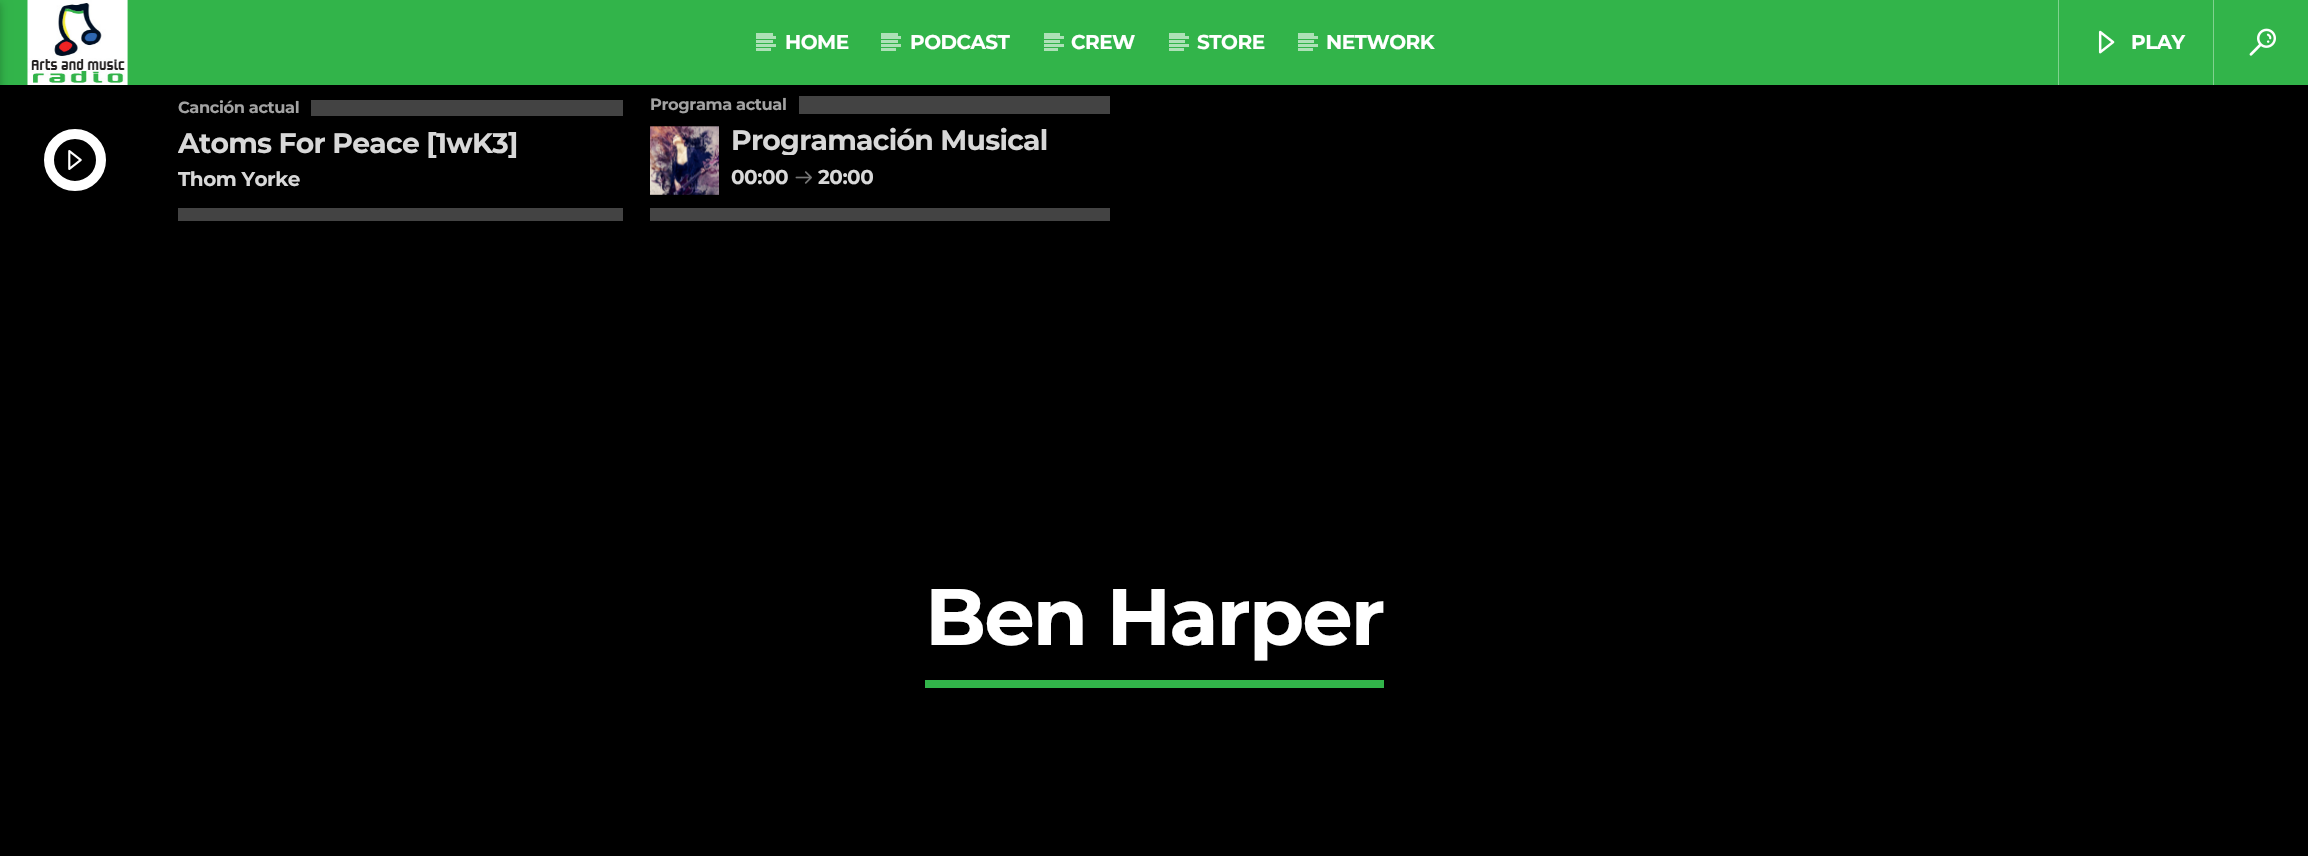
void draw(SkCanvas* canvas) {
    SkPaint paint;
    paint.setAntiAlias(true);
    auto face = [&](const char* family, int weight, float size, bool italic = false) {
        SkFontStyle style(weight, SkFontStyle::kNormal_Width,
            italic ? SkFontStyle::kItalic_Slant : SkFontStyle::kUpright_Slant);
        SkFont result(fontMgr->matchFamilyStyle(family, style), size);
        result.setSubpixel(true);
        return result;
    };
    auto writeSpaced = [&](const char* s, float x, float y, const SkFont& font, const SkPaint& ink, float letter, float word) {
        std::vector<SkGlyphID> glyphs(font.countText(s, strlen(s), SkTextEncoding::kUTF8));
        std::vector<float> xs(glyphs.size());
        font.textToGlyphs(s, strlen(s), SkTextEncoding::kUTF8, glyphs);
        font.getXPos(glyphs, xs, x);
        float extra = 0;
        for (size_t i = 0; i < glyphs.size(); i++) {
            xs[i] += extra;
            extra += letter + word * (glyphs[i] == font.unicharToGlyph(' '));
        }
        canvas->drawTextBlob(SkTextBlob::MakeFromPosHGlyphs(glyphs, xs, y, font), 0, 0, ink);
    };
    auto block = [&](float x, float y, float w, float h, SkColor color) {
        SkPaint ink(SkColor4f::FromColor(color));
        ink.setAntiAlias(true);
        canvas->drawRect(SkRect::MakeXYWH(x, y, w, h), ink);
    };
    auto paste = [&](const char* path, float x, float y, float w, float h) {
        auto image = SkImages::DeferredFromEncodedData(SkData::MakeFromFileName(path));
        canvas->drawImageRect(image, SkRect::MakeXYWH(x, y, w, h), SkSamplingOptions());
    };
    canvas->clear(SK_ColorBLACK);
    block(0, 0, 2308, 85, SkColorSetRGB(50, 180, 74));
    paint.setColor(SkColorSetARGB(31, 0, 0, 0));
    paint.setMaskFilter(SkMaskFilter::MakeBlur(kNormal_SkBlurStyle, 6));
    canvas->drawRect(SkRect::MakeXYWH(-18, 3, 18, 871), paint);
    paint.setMaskFilter(nullptr);
    paint.setColor(SkColorSetARGB(41, 0, 0, 0));
    paint.setMaskFilter(SkMaskFilter::MakeBlur(kNormal_SkBlurStyle, 3));
    canvas->drawRect(SkRect::MakeXYWH(-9, 3, 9, 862), paint);
    paint.setMaskFilter(nullptr);
    paste("pic1.png", 27, 0, 101, 85);
    block(756, 48, 15, 3, SkColorSetRGB(173, 225, 183));
    block(756, 33, 17, 3, SkColorSetRGB(173, 225, 183));
    block(756, 40, 17, 3, SkColorSetRGB(173, 225, 183));
    auto kFont1 = face("Montserrat", 700, 20);
    paint.setColor(SK_ColorWHITE);
    writeSpaced("HOME", 785, 49, kFont1, paint, -0.5f, 0);
    block(756, 36, 20, 3, SkColorSetRGB(173, 225, 183));
    block(756, 44, 20, 3, SkColorSetRGB(173, 225, 183));
    block(881, 48, 15, 3, SkColorSetRGB(173, 225, 183));
    block(881, 33, 17, 3, SkColorSetRGB(173, 225, 183));
    block(881, 40, 17, 3, SkColorSetRGB(173, 225, 183));
    writeSpaced("PODCAST", 910, 49, kFont1, paint, -0.5f, 0);
    block(881, 36, 20, 3, SkColorSetRGB(173, 225, 183));
    block(881, 44, 20, 3, SkColorSetRGB(173, 225, 183));
    block(1044, 48, 14, 3, SkColorSetRGB(173, 225, 183));
    block(1044, 33, 16, 3, SkColorSetRGB(173, 225, 183));
    block(1044, 40, 16, 3, SkColorSetRGB(173, 225, 183));
    writeSpaced("CREW", 1071, 49, kFont1, paint, -0.5f, 0);
    block(1044, 36, 20, 3, SkColorSetRGB(173, 225, 183));
    block(1044, 44, 20, 3, SkColorSetRGB(173, 225, 183));
    block(1169, 48, 15, 3, SkColorSetRGB(173, 225, 183));
    block(1169, 33, 16, 3, SkColorSetRGB(173, 225, 183));
    block(1169, 40, 16, 3, SkColorSetRGB(173, 225, 183));
    writeSpaced("STORE", 1197, 49, kFont1, paint, -0.5f, 0);
    block(1169, 36, 20, 3, SkColorSetRGB(173, 225, 183));
    block(1169, 44, 20, 3, SkColorSetRGB(173, 225, 183));
    block(1298, 48, 15, 3, SkColorSetRGB(173, 225, 183));
    block(1298, 33, 16, 3, SkColorSetRGB(173, 225, 183));
    block(1298, 40, 16, 3, SkColorSetRGB(173, 225, 183));
    writeSpaced("NETWORK", 1326, 49, kFont1, paint, -0.5f, 0);
    block(1298, 36, 20, 3, SkColorSetRGB(173, 225, 183));
    block(1298, 44, 20, 3, SkColorSetRGB(173, 225, 183));
    block(2058, 0, 1, 85, SkColorSetRGB(128, 209, 143));
    paste("pic2.png", 2098, 30, 17, 24);
    writeSpaced("PLAY", 2131, 49, kFont1, paint, -0.5f, 0);
    block(2213, 0, 1, 85, SkColorSetRGB(128, 209, 143));
    paste("pic3.png", 2249, 28, 27, 28);
    paint.setStyle(SkPaint::kStroke_Style);
    paint.setStrokeWidth(10);
    canvas->drawCircle(75, 160, 26, paint);
    paste("pic4.png", 68, 150, 14, 20);
    auto kFont2 = face("Montserrat", 700, 16.25f);
    paint.setStyle(SkPaint::kFill_Style);
    paint.setColor(SkColorSetRGB(162, 162, 162));
    writeSpaced("Canción actual", 178, 113, kFont2, paint, -0.4f, 0);
    block(311, 100, 312, 16, SkColorSetRGB(67, 67, 67));
    canvas->save();
    canvas->clipRect(SkRect::MakeXYWH(178, 130, 445, 28));
    auto kFont3 = face("Montserrat", 700, 28.25f);
    paint.setColor(SkColorSetRGB(216, 216, 216));
    writeSpaced("Atoms For Peace [1wK3]", 178, 153, kFont3, paint, -0.75f, 0);
    canvas->restore();
    writeSpaced("Thom Yorke", 178, 186, kFont1, paint, -0.5f, 0);
    block(178, 208, 445, 13, SkColorSetRGB(67, 67, 67));
    paint.setColor(SkColorSetRGB(162, 162, 162));
    writeSpaced("Programa actual", 650, 110, kFont2, paint, -0.4f, 0);
    block(799, 96, 311, 18, SkColorSetRGB(67, 67, 67));
    paste("pic5.png", 650, 126, 69, 69);
    canvas->save();
    canvas->clipRect(SkRect::MakeXYWH(731, 126, 318, 29));
    paint.setColor(SkColorSetRGB(216, 216, 216));
    writeSpaced("Programación Musical", 731, 150, kFont3, paint, -0.75f, 0);
    canvas->restore();
    writeSpaced("00:00", 731, 184, kFont1, paint, -0.5f, 0);
    paste("pic6.png", 795, 171, 17, 13);
    writeSpaced("20:00", 818, 184, kFont1, paint, -0.5f, 0);
    block(650, 208, 460, 13, SkColorSetRGB(67, 67, 67));
    block(925, 680, 459, 8, SkColorSetRGB(50, 180, 74));
    auto kFont4 = face("Montserrat", 700, 80);
    paint.setColor(SK_ColorWHITE);
    writeSpaced("Ben Harper", 925, 645, kFont4, paint, -2, 0);
}
